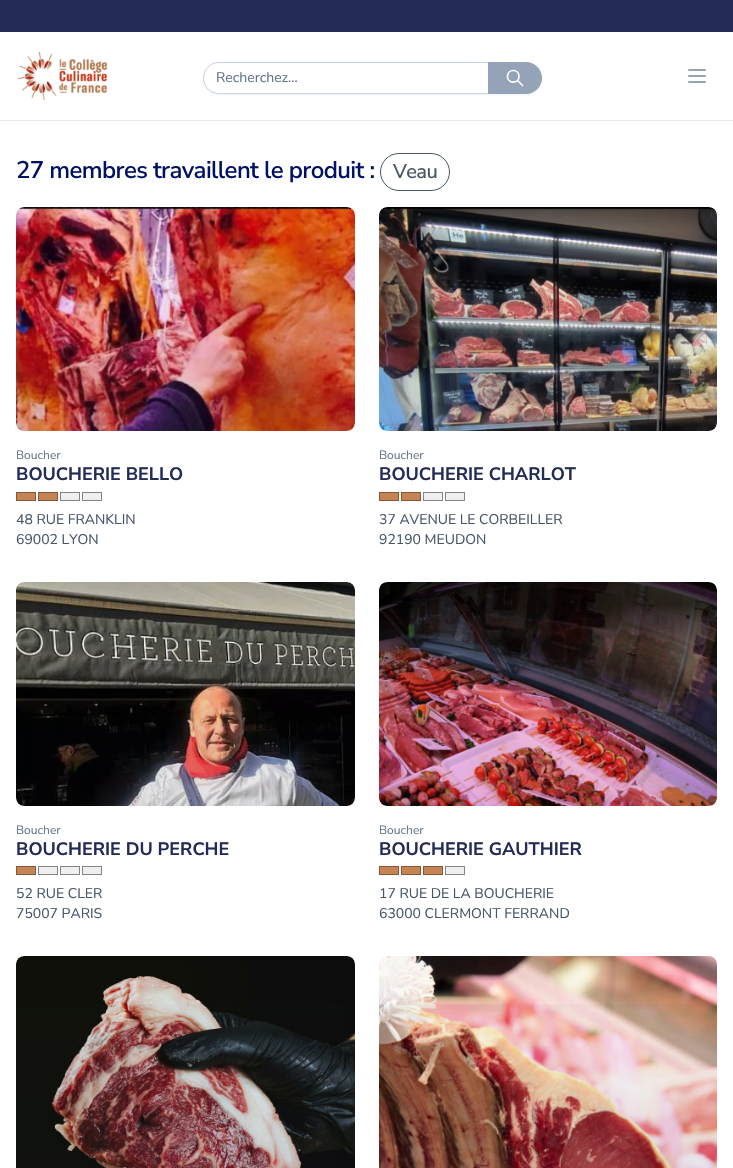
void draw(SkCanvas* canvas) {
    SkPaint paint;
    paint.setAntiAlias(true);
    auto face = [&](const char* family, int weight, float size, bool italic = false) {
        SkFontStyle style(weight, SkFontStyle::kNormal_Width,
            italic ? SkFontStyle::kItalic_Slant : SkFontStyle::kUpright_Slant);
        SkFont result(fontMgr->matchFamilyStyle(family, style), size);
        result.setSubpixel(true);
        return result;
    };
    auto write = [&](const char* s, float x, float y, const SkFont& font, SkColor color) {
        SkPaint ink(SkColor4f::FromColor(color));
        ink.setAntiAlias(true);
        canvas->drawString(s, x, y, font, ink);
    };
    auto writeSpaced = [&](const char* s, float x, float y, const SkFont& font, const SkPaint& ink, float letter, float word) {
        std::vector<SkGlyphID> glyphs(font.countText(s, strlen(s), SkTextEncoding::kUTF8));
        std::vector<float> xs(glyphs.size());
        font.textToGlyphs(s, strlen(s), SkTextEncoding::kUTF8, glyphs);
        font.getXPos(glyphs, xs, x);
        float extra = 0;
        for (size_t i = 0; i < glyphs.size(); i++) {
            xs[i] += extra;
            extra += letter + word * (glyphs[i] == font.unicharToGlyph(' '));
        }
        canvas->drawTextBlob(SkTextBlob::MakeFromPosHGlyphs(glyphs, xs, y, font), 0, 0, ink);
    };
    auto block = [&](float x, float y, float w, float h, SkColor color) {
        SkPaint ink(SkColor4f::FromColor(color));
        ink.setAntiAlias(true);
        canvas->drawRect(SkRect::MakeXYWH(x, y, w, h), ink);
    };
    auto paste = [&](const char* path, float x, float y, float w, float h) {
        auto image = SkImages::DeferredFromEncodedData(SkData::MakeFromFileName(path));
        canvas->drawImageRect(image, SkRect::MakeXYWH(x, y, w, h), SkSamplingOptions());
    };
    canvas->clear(SK_ColorWHITE);
    block(0, 0, 733, 32, SkColorSetRGB(36, 43, 86));
    block(0, 120, 733, 1, SkColorSetRGB(229, 231, 235));
    paste("pic1.png", 17, 52, 91, 48);
    paint.setColor(SkColorSetARGB(13, 0, 0, 0));
    paint.setMaskFilter(SkMaskFilter::MakeBlur(kNormal_SkBlurStyle, 1));
    canvas->drawRoundRect(SkRect::MakeXYWH(203, 63, 339, 32), 16, 16, paint);
    paint.setMaskFilter(nullptr);
    paint.setColor(SK_ColorWHITE);
    canvas->drawPath(SkPathBuilder().moveTo(219, 62.5f).lineTo(488.5f, 62.5f).lineTo(488.5f, 93.5f).lineTo(219, 93.5f).cubicTo(210.5f, 93.5f, 203.5f, 86.5f, 203.5f, 78).cubicTo(203.5f, 69.5f, 210.5f, 62.5f, 219, 62.5f).close().detach(), paint);
    paint.setStyle(SkPaint::kStroke_Style);
    paint.setStrokeWidth(1);
    paint.setColor(SkColorSetRGB(203, 213, 225));
    canvas->drawPath(SkPathBuilder().moveTo(219, 62.5f).lineTo(488.5f, 62.5f).lineTo(488.5f, 93.5f).lineTo(219, 93.5f).cubicTo(210.5f, 93.5f, 203.5f, 86.5f, 203.5f, 78).cubicTo(203.5f, 69.5f, 210.5f, 62.5f, 219, 62.5f).close().detach(), paint);
    auto kFont1 = face("Nunito Sans", 400, 14);
    write("Recherchez...", 216, 82, kFont1, SkColorSetRGB(100, 116, 139));
    paint.setStyle(SkPaint::kFill_Style);
    paint.setColor(SkColorSetRGB(148, 163, 184));
    canvas->drawPath(SkPathBuilder().moveTo(488.5f, 62.5f).lineTo(526, 62.5f).cubicTo(534.5f, 62.5f, 541.5f, 69.5f, 541.5f, 78).cubicTo(541.5f, 86.5f, 534.5f, 93.5f, 526, 93.5f).lineTo(488.5f, 93.5f).close().detach(), paint);
    paint.setStyle(SkPaint::kStroke_Style);
    canvas->drawPath(SkPathBuilder().moveTo(488.5f, 62.5f).lineTo(526, 62.5f).cubicTo(534.5f, 62.5f, 541.5f, 69.5f, 541.5f, 78).cubicTo(541.5f, 86.5f, 534.5f, 93.5f, 526, 93.5f).lineTo(488.5f, 93.5f).close().detach(), paint);
    paint.setStrokeWidth(1.7f);
    paint.setStrokeCap(SkPaint::kRound_Cap);
    paint.setStrokeJoin(SkPaint::kRound_Join);
    paint.setColor(SK_ColorWHITE);
    canvas->drawPath(SkPathBuilder().moveTo(522.5f, 85.5f).lineTo(517.5f, 80.5f).moveTo(519, 76.5f).cubicTo(519, 84, 507.5f, 84, 507.5f, 76.5f).cubicTo(507.5f, 68.5f, 519, 68.5f, 519, 76.5f).close().detach(), paint);
    paint.setStrokeWidth(2);
    paint.setColor(SkColorSetRGB(148, 163, 184));
    canvas->drawPath(SkPathBuilder().moveTo(689, 70).lineTo(705, 70).moveTo(689, 76).lineTo(705, 76).moveTo(689, 82).lineTo(705, 82).detach(), paint);
    auto kFont2 = face("Nunito Sans", 600, 24);
    paint.setStyle(SkPaint::kFill_Style);
    paint.setColor(SkColorSetRGB(1, 17, 100));
    writeSpaced("27 membres travaillent le produit :", 16, 178, kFont2, paint, -0.6f, 0);
    paint.setStyle(SkPaint::kStroke_Style);
    paint.setStrokeWidth(1);
    paint.setStrokeCap(SkPaint::kButt_Cap);
    paint.setStrokeJoin(SkPaint::kMiter_Join);
    paint.setColor(SkColorSetRGB(71, 85, 105));
    canvas->drawRoundRect(SkRect::MakeXYWH(380.5f, 153.5f, 69, 37), 18.5f, 18.5f, paint);
    auto kFont3 = face("Nunito Sans", 500, 20);
    paint.setStyle(SkPaint::kFill_Style);
    writeSpaced("Veau", 393, 178, kFont3, paint, -0.6f, 0);
    paste("pic2.png", 16, 207, 339, 224);
    {
        const SkColor colors[] = {SkColorSetARGB(26, 17, 24, 39), SkColorSetARGB(0, 17, 24, 39)};
        const float stops[] = {0, 1};
        const SkPoint ends[] = {{186, 431}, {186, 207}};
        paint.setShader(SkGradientShader::MakeLinear(ends, colors, stops, 2, SkTileMode::kClamp));
        paint.setAlpha(255);
    }
    canvas->drawRoundRect(SkRect::MakeXYWH(16, 207, 339, 224), 8, 8, paint);
    auto kFont4 = face("Nunito Sans", 400, 12);
    write("Boucher", 16, 459, kFont4, SkColorSetRGB(100, 116, 139));
    auto kFont5 = face("Nunito Sans", 700, 18);
    write("BOUCHERIE BELLO", 16, 480, kFont5, SkColorSetRGB(36, 43, 86));
    paint.setShader(nullptr);
    paint.setColor(SkColorSetRGB(198, 132, 84));
    canvas->drawRect(SkRect::MakeXYWH(16.5f, 492.5f, 19, 8), paint);
    paint.setStyle(SkPaint::kStroke_Style);
    paint.setColor(SkColorSetRGB(132, 87, 57));
    canvas->drawRect(SkRect::MakeXYWH(16.5f, 492.5f, 19, 8), paint);
    paint.setStyle(SkPaint::kFill_Style);
    paint.setColor(SkColorSetRGB(198, 132, 84));
    canvas->drawRect(SkRect::MakeXYWH(38.5f, 492.5f, 19, 8), paint);
    paint.setStyle(SkPaint::kStroke_Style);
    paint.setColor(SkColorSetRGB(132, 87, 57));
    canvas->drawRect(SkRect::MakeXYWH(38.5f, 492.5f, 19, 8), paint);
    paint.setStyle(SkPaint::kFill_Style);
    paint.setColor(SkColorSetRGB(239, 239, 239));
    canvas->drawRect(SkRect::MakeXYWH(60.5f, 492.5f, 19, 8), paint);
    paint.setStyle(SkPaint::kStroke_Style);
    paint.setColor(SkColorSetRGB(132, 132, 132));
    canvas->drawRect(SkRect::MakeXYWH(60.5f, 492.5f, 19, 8), paint);
    paint.setStyle(SkPaint::kFill_Style);
    paint.setColor(SkColorSetRGB(239, 239, 239));
    canvas->drawRect(SkRect::MakeXYWH(82.5f, 492.5f, 19, 8), paint);
    paint.setStyle(SkPaint::kStroke_Style);
    paint.setColor(SkColorSetRGB(132, 132, 132));
    canvas->drawRect(SkRect::MakeXYWH(82.5f, 492.5f, 19, 8), paint);
    write("48 RUE FRANKLIN", 16, 524, kFont1, SkColorSetRGB(71, 85, 105));
    write("69002 LYON", 16, 544, kFont1, SkColorSetRGB(71, 85, 105));
    paste("pic3.png", 379, 207, 338, 224);
    paint.setStyle(SkPaint::kFill_Style);
    {
        const SkColor colors[] = {SkColorSetARGB(26, 17, 24, 39), SkColorSetARGB(0, 17, 24, 39)};
        const float stops[] = {0, 1};
        const SkPoint ends[] = {{548, 431}, {548, 207}};
        paint.setShader(SkGradientShader::MakeLinear(ends, colors, stops, 2, SkTileMode::kClamp));
        paint.setAlpha(255);
    }
    canvas->drawRoundRect(SkRect::MakeXYWH(379, 207, 338, 224), 8, 8, paint);
    write("Boucher", 379, 459, kFont4, SkColorSetRGB(100, 116, 139));
    write("BOUCHERIE CHARLOT", 379, 480, kFont5, SkColorSetRGB(36, 43, 86));
    paint.setShader(nullptr);
    paint.setColor(SkColorSetRGB(198, 132, 84));
    canvas->drawRect(SkRect::MakeXYWH(379.5f, 492.5f, 19, 8), paint);
    paint.setStyle(SkPaint::kStroke_Style);
    paint.setColor(SkColorSetRGB(132, 87, 57));
    canvas->drawRect(SkRect::MakeXYWH(379.5f, 492.5f, 19, 8), paint);
    paint.setStyle(SkPaint::kFill_Style);
    paint.setColor(SkColorSetRGB(198, 132, 84));
    canvas->drawRect(SkRect::MakeXYWH(401.5f, 492.5f, 19, 8), paint);
    paint.setStyle(SkPaint::kStroke_Style);
    paint.setColor(SkColorSetRGB(132, 87, 57));
    canvas->drawRect(SkRect::MakeXYWH(401.5f, 492.5f, 19, 8), paint);
    paint.setStyle(SkPaint::kFill_Style);
    paint.setColor(SkColorSetRGB(239, 239, 239));
    canvas->drawRect(SkRect::MakeXYWH(423.5f, 492.5f, 19, 8), paint);
    paint.setStyle(SkPaint::kStroke_Style);
    paint.setColor(SkColorSetRGB(132, 132, 132));
    canvas->drawRect(SkRect::MakeXYWH(423.5f, 492.5f, 19, 8), paint);
    paint.setStyle(SkPaint::kFill_Style);
    paint.setColor(SkColorSetRGB(239, 239, 239));
    canvas->drawRect(SkRect::MakeXYWH(445.5f, 492.5f, 19, 8), paint);
    paint.setStyle(SkPaint::kStroke_Style);
    paint.setColor(SkColorSetRGB(132, 132, 132));
    canvas->drawRect(SkRect::MakeXYWH(445.5f, 492.5f, 19, 8), paint);
    write("37 AVENUE LE CORBEILLER", 379, 524, kFont1, SkColorSetRGB(71, 85, 105));
    write("92190 MEUDON", 379, 544, kFont1, SkColorSetRGB(71, 85, 105));
    paste("pic4.png", 16, 582, 339, 224);
    paint.setStyle(SkPaint::kFill_Style);
    {
        const SkColor colors[] = {SkColorSetARGB(26, 17, 24, 39), SkColorSetARGB(0, 17, 24, 39)};
        const float stops[] = {0, 1};
        const SkPoint ends[] = {{186, 806}, {186, 582}};
        paint.setShader(SkGradientShader::MakeLinear(ends, colors, stops, 2, SkTileMode::kClamp));
        paint.setAlpha(255);
    }
    canvas->drawRoundRect(SkRect::MakeXYWH(16, 582, 339, 224), 8, 8, paint);
    write("Boucher", 16, 834, kFont4, SkColorSetRGB(100, 116, 139));
    write("BOUCHERIE DU PERCHE", 16, 855, kFont5, SkColorSetRGB(36, 43, 86));
    paint.setShader(nullptr);
    paint.setColor(SkColorSetRGB(198, 132, 84));
    canvas->drawRect(SkRect::MakeXYWH(16.5f, 866.5f, 19, 8), paint);
    paint.setStyle(SkPaint::kStroke_Style);
    paint.setColor(SkColorSetRGB(132, 87, 57));
    canvas->drawRect(SkRect::MakeXYWH(16.5f, 866.5f, 19, 8), paint);
    paint.setStyle(SkPaint::kFill_Style);
    paint.setColor(SkColorSetRGB(239, 239, 239));
    canvas->drawRect(SkRect::MakeXYWH(38.5f, 866.5f, 19, 8), paint);
    paint.setStyle(SkPaint::kStroke_Style);
    paint.setColor(SkColorSetRGB(132, 132, 132));
    canvas->drawRect(SkRect::MakeXYWH(38.5f, 866.5f, 19, 8), paint);
    paint.setStyle(SkPaint::kFill_Style);
    paint.setColor(SkColorSetRGB(239, 239, 239));
    canvas->drawRect(SkRect::MakeXYWH(60.5f, 866.5f, 19, 8), paint);
    paint.setStyle(SkPaint::kStroke_Style);
    paint.setColor(SkColorSetRGB(132, 132, 132));
    canvas->drawRect(SkRect::MakeXYWH(60.5f, 866.5f, 19, 8), paint);
    paint.setStyle(SkPaint::kFill_Style);
    paint.setColor(SkColorSetRGB(239, 239, 239));
    canvas->drawRect(SkRect::MakeXYWH(82.5f, 866.5f, 19, 8), paint);
    paint.setStyle(SkPaint::kStroke_Style);
    paint.setColor(SkColorSetRGB(132, 132, 132));
    canvas->drawRect(SkRect::MakeXYWH(82.5f, 866.5f, 19, 8), paint);
    write("52 RUE CLER", 16, 898, kFont1, SkColorSetRGB(71, 85, 105));
    write("75007 PARIS", 16, 918, kFont1, SkColorSetRGB(71, 85, 105));
    paste("pic5.png", 379, 582, 338, 224);
    paint.setStyle(SkPaint::kFill_Style);
    {
        const SkColor colors[] = {SkColorSetARGB(26, 17, 24, 39), SkColorSetARGB(0, 17, 24, 39)};
        const float stops[] = {0, 1};
        const SkPoint ends[] = {{548, 806}, {548, 582}};
        paint.setShader(SkGradientShader::MakeLinear(ends, colors, stops, 2, SkTileMode::kClamp));
        paint.setAlpha(255);
    }
    canvas->drawRoundRect(SkRect::MakeXYWH(379, 582, 338, 224), 8, 8, paint);
    write("Boucher", 379, 834, kFont4, SkColorSetRGB(100, 116, 139));
    write("BOUCHERIE GAUTHIER", 379, 855, kFont5, SkColorSetRGB(36, 43, 86));
    paint.setShader(nullptr);
    paint.setColor(SkColorSetRGB(198, 132, 84));
    canvas->drawRect(SkRect::MakeXYWH(379.5f, 866.5f, 19, 8), paint);
    paint.setStyle(SkPaint::kStroke_Style);
    paint.setColor(SkColorSetRGB(132, 87, 57));
    canvas->drawRect(SkRect::MakeXYWH(379.5f, 866.5f, 19, 8), paint);
    paint.setStyle(SkPaint::kFill_Style);
    paint.setColor(SkColorSetRGB(198, 132, 84));
    canvas->drawRect(SkRect::MakeXYWH(401.5f, 866.5f, 19, 8), paint);
    paint.setStyle(SkPaint::kStroke_Style);
    paint.setColor(SkColorSetRGB(132, 87, 57));
    canvas->drawRect(SkRect::MakeXYWH(401.5f, 866.5f, 19, 8), paint);
    paint.setStyle(SkPaint::kFill_Style);
    paint.setColor(SkColorSetRGB(198, 132, 84));
    canvas->drawRect(SkRect::MakeXYWH(423.5f, 866.5f, 19, 8), paint);
    paint.setStyle(SkPaint::kStroke_Style);
    paint.setColor(SkColorSetRGB(132, 87, 57));
    canvas->drawRect(SkRect::MakeXYWH(423.5f, 866.5f, 19, 8), paint);
    paint.setStyle(SkPaint::kFill_Style);
    paint.setColor(SkColorSetRGB(239, 239, 239));
    canvas->drawRect(SkRect::MakeXYWH(445.5f, 866.5f, 19, 8), paint);
    paint.setStyle(SkPaint::kStroke_Style);
    paint.setColor(SkColorSetRGB(132, 132, 132));
    canvas->drawRect(SkRect::MakeXYWH(445.5f, 866.5f, 19, 8), paint);
    write("17 RUE DE LA BOUCHERIE", 379, 898, kFont1, SkColorSetRGB(71, 85, 105));
    write("63000 CLERMONT FERRAND", 379, 918, kFont1, SkColorSetRGB(71, 85, 105));
    paste("pic6.png", 16, 956, 339, 212);
    paint.setStyle(SkPaint::kFill_Style);
    {
        const SkColor colors[] = {SkColorSetARGB(26, 17, 24, 39), SkColorSetARGB(0, 17, 24, 39)};
        const float stops[] = {0, 1};
        const SkPoint ends[] = {{186, 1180}, {186, 956}};
        paint.setShader(SkGradientShader::MakeLinear(ends, colors, stops, 2, SkTileMode::kClamp));
        paint.setAlpha(255);
    }
    canvas->drawRect(SkRect::MakeXYWH(16, 1004, 339, 164), paint);
    paste("pic7.png", 379, 956, 338, 212);
    {
        const SkColor colors[] = {SkColorSetARGB(26, 17, 24, 39), SkColorSetARGB(0, 17, 24, 39)};
        const float stops[] = {0, 1};
        const SkPoint ends[] = {{548, 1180}, {548, 956}};
        paint.setShader(SkGradientShader::MakeLinear(ends, colors, stops, 2, SkTileMode::kClamp));
        paint.setAlpha(255);
    }
    canvas->drawRect(SkRect::MakeXYWH(379, 1004, 338, 164), paint);
}
